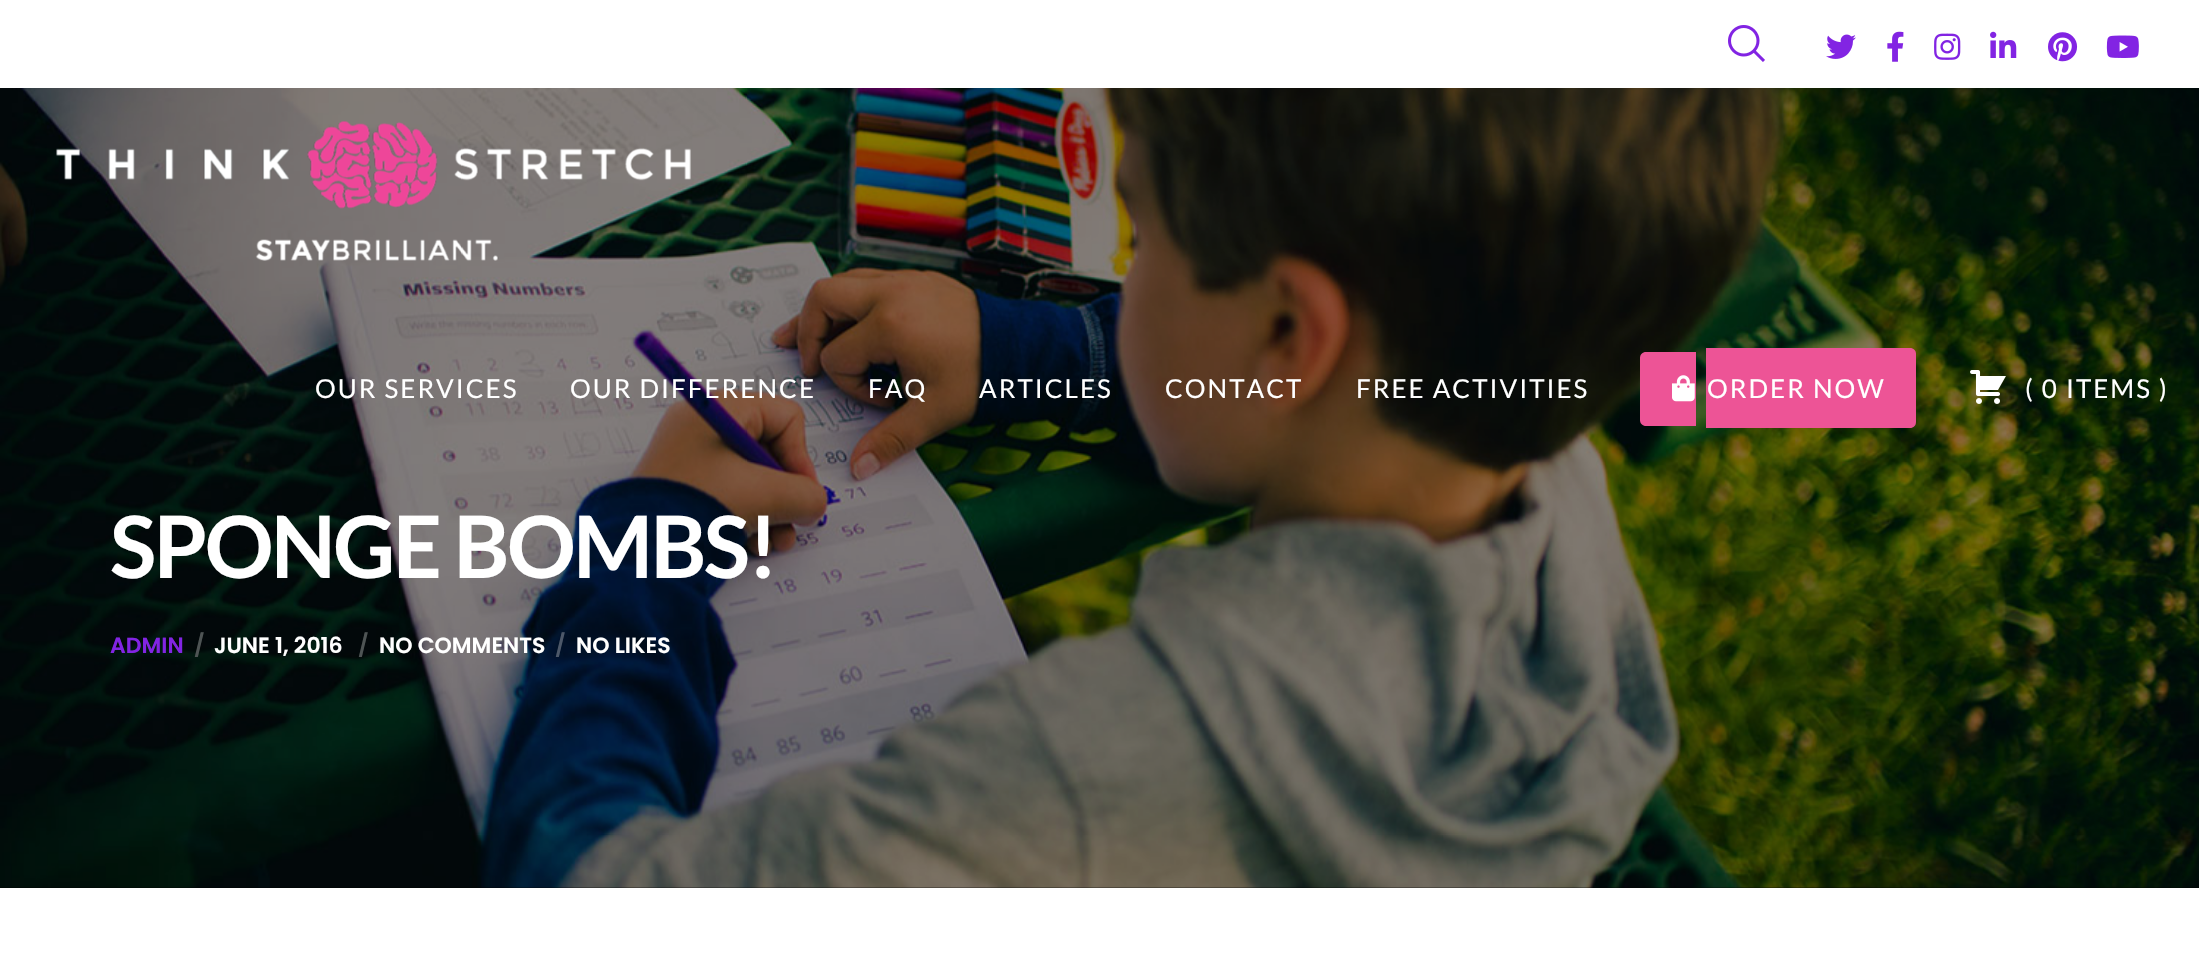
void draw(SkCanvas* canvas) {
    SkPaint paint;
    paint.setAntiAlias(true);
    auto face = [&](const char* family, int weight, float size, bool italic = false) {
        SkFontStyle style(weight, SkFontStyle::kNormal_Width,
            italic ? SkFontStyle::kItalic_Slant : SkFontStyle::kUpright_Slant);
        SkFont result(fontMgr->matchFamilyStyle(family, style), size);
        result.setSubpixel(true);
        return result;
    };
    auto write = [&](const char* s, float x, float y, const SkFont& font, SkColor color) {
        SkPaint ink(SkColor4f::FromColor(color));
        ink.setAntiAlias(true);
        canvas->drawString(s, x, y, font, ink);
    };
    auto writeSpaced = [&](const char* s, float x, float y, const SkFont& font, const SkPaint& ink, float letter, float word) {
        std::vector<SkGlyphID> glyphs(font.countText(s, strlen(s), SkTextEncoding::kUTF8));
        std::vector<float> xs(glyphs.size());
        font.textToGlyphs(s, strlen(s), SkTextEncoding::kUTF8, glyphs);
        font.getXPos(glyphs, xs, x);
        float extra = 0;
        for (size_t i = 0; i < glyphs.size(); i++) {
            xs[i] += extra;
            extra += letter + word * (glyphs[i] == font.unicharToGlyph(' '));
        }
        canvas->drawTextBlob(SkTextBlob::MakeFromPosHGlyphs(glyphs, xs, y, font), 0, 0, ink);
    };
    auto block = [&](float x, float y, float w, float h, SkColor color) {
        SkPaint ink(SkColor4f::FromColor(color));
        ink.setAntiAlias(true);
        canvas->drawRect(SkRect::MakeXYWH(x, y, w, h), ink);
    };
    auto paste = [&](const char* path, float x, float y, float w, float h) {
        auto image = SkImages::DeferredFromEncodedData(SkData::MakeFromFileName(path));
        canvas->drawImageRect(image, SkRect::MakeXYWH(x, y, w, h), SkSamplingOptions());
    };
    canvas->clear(SK_ColorBLACK);
    block(0, 0, 2199, 88, SK_ColorWHITE);
    paste("pic1.png", 1728, 25, 37, 37);
    paste("pic2.png", 1826, 34, 30, 25);
    paste("pic3.png", 1887, 31, 17, 31);
    paste("pic4.png", 1934, 33, 27, 27);
    paste("pic5.png", 1990, 31, 27, 27);
    paste("pic6.png", 2048, 32, 30, 30);
    paste("pic7.png", 2106, 35, 33, 23);
    paste("pic11.png", 0, 88, 2199, 800);
    paste("pic8.png", 56, 121, 635, 140);
    auto kFont1 = face("Lato", 400, 26);
    paint.setColor(SK_ColorWHITE);
    writeSpaced("OUR SERVICES", 315, 398, kFont1, paint, 2, 0);
    writeSpaced("OUR DIFFERENCE", 570, 398, kFont1, paint, 2, 0);
    writeSpaced("FAQ", 868, 398, kFont1, paint, 2, 0);
    writeSpaced("ARTICLES", 979, 398, kFont1, paint, 2, 0);
    writeSpaced("CONTACT", 1165, 398, kFont1, paint, 2, 0);
    writeSpaced("FREE ACTIVITIES", 1356, 398, kFont1, paint, 2, 0);
    paint.setColor(SkColorSetRGB(237, 84, 150));
    canvas->drawPath(SkPathBuilder().moveTo(1646, 352).lineTo(1696, 352).lineTo(1696, 426).lineTo(1646, 426).cubicTo(1642.5f, 426, 1640, 423.5f, 1640, 420).lineTo(1640, 358).cubicTo(1640, 354.5f, 1642.5f, 352, 1646, 352).close().detach(), paint);
    canvas->drawPath(SkPathBuilder().moveTo(1706, 348).lineTo(1910, 348).cubicTo(1913.5f, 348, 1916, 350.5f, 1916, 354).lineTo(1916, 422).cubicTo(1916, 425.5f, 1913.5f, 428, 1910, 428).lineTo(1706, 428).close().detach(), paint);
    paste("pic9.png", 1672, 375, 23, 27);
    paint.setColor(SK_ColorWHITE);
    writeSpaced("ORDER NOW", 1707, 398, kFont1, paint, 2, 0);
    paste("pic10.png", 1970, 370, 36, 34);
    writeSpaced("( 0 ITEMS )", 2025, 398, kFont1, paint, 2, 0);
    auto kFont2 = face("Lato", 700, 86);
    writeSpaced("SPONGE BOMBS!", 110, 578, kFont2, paint, -2.6f, 0);
    auto kFont3 = face("Poppins", 600, 22);
    write("ADMIN", 110, 653, kFont3, SkColorSetRGB(130, 36, 227));
    write("/", 194, 653, kFont3, SkColorSetRGB(78, 84, 84));
    write("JUNE 1, 2016", 214, 653, kFont3, SK_ColorWHITE);
    write("/", 358, 653, kFont3, SkColorSetRGB(78, 84, 84));
    write("NO COMMENTS", 379, 653, kFont3, SK_ColorWHITE);
    write("/", 555, 653, kFont3, SkColorSetRGB(77, 88, 105));
    write("NO LIKES", 576, 653, kFont3, SK_ColorWHITE);
    block(0, 888, 2199, 66, SK_ColorWHITE);
}
